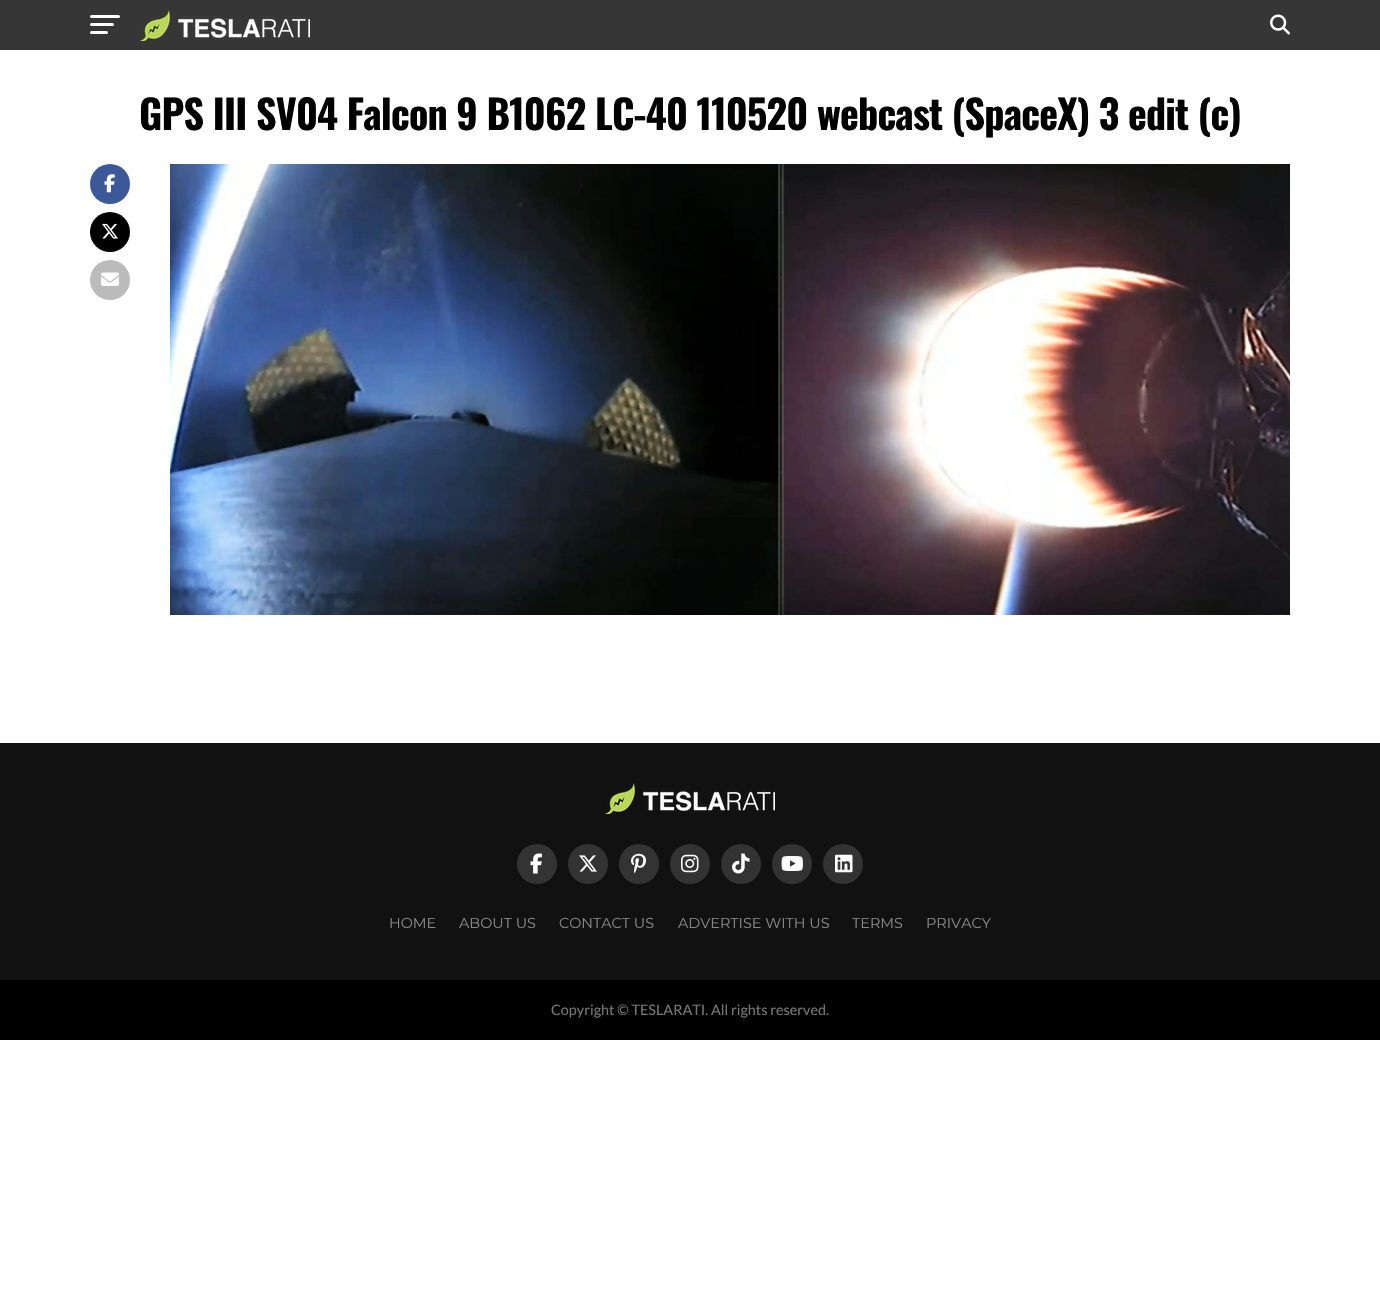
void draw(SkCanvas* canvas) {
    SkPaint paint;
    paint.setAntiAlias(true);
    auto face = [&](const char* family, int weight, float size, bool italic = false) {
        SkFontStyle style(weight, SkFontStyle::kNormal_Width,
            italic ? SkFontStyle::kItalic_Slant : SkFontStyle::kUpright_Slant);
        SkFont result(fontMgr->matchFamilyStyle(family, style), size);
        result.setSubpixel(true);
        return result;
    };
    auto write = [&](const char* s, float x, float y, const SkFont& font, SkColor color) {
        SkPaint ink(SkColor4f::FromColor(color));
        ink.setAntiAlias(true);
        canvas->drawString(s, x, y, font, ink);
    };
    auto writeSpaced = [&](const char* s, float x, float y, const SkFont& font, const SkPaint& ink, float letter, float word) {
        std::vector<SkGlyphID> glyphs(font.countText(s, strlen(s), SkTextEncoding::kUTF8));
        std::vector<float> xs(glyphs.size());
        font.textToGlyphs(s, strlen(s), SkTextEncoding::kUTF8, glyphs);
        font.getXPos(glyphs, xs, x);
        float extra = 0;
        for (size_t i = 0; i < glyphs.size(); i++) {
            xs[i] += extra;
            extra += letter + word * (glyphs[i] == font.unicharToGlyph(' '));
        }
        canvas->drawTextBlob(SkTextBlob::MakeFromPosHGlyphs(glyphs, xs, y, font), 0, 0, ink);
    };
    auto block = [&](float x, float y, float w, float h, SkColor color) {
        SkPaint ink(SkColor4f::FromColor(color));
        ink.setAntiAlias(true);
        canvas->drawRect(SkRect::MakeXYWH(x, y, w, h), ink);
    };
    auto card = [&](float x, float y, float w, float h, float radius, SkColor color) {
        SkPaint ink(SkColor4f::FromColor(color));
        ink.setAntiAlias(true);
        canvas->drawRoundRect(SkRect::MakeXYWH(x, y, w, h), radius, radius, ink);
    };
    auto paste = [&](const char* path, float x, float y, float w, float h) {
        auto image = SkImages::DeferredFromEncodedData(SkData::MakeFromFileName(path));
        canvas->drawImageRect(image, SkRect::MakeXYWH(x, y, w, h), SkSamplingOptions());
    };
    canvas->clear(SK_ColorWHITE);
    block(0, 0, 1380, 50, SkColorSetRGB(54, 54, 54));
    card(90, 15, 30, 3, 1.5f, SK_ColorWHITE);
    card(90, 23, 24, 3, 1.5f, SK_ColorWHITE);
    card(90, 31, 18, 3, 1.5f, SK_ColorWHITE);
    paste("pic1.png", 140, 10, 170, 31);
    paste("pic2.png", 1270, 14, 20, 21);
    auto kFont1 = face("Oswald", 700, 40);
    paint.setColor(SK_ColorBLACK);
    writeSpaced("GPS III SV04 Falcon 9 B1062 LC-40 110520 webcast (SpaceX) 3 edit (c)", 139, 130, kFont1, paint, -0.8f, 0);
    paint.setColor(SkColorSetRGB(59, 89, 152));
    canvas->drawCircle(110, 184, 20, paint);
    paste("pic3.png", 104, 174, 11, 19);
    paint.setColor(SK_ColorBLACK);
    canvas->drawCircle(110, 232, 20, paint);
    paste("pic4.png", 102, 223, 16, 16);
    paint.setColor(SkColorSetRGB(187, 187, 187));
    canvas->drawCircle(110, 280, 20, paint);
    paste("pic5.png", 101, 272, 18, 14);
    paste("pic6.png", 170, 164, 1120, 451);
    block(0, 743, 1380, 237, SkColorSetRGB(17, 17, 17));
    paste("pic7.png", 605, 783, 170, 31);
    paint.setColor(SkColorSetRGB(51, 51, 51));
    canvas->drawCircle(537, 864, 20, paint);
    paste("pic8.png", 530, 853, 12, 21);
    canvas->drawCircle(588, 864, 20, paint);
    paste("pic9.png", 579, 855, 18, 17);
    canvas->drawCircle(639, 864, 20, paint);
    paste("pic10.png", 631, 853, 15, 21);
    canvas->drawCircle(690, 864, 20, paint);
    paste("pic11.png", 681, 854, 18, 19);
    canvas->drawCircle(741, 864, 20, paint);
    paste("pic12.png", 732, 853, 18, 21);
    canvas->drawCircle(792, 864, 20, paint);
    paste("pic13.png", 781, 856, 22, 15);
    canvas->drawCircle(843, 864, 20, paint);
    paste("pic14.png", 835, 854, 18, 19);
    auto kFont2 = face("Montserrat", 400, 14.4f);
    write("HOME", 389, 928, kFont2, SkColorSetRGB(136, 136, 136));
    write("ABOUT US", 459, 928, kFont2, SkColorSetRGB(136, 136, 136));
    write("CONTACT US", 559, 928, kFont2, SkColorSetRGB(136, 136, 136));
    write("ADVERTISE WITH US", 678, 928, kFont2, SkColorSetRGB(136, 136, 136));
    write("TERMS", 852, 928, kFont2, SkColorSetRGB(136, 136, 136));
    write("PRIVACY", 926, 928, kFont2, SkColorSetRGB(136, 136, 136));
    block(0, 980, 1380, 60, SK_ColorBLACK);
    auto kFont3 = face("Lato", 400, 14.4f);
    write("Copyright © TESLARATI. All rights reserved.", 551, 1015, kFont3, SkColorSetRGB(119, 119, 119));
}
